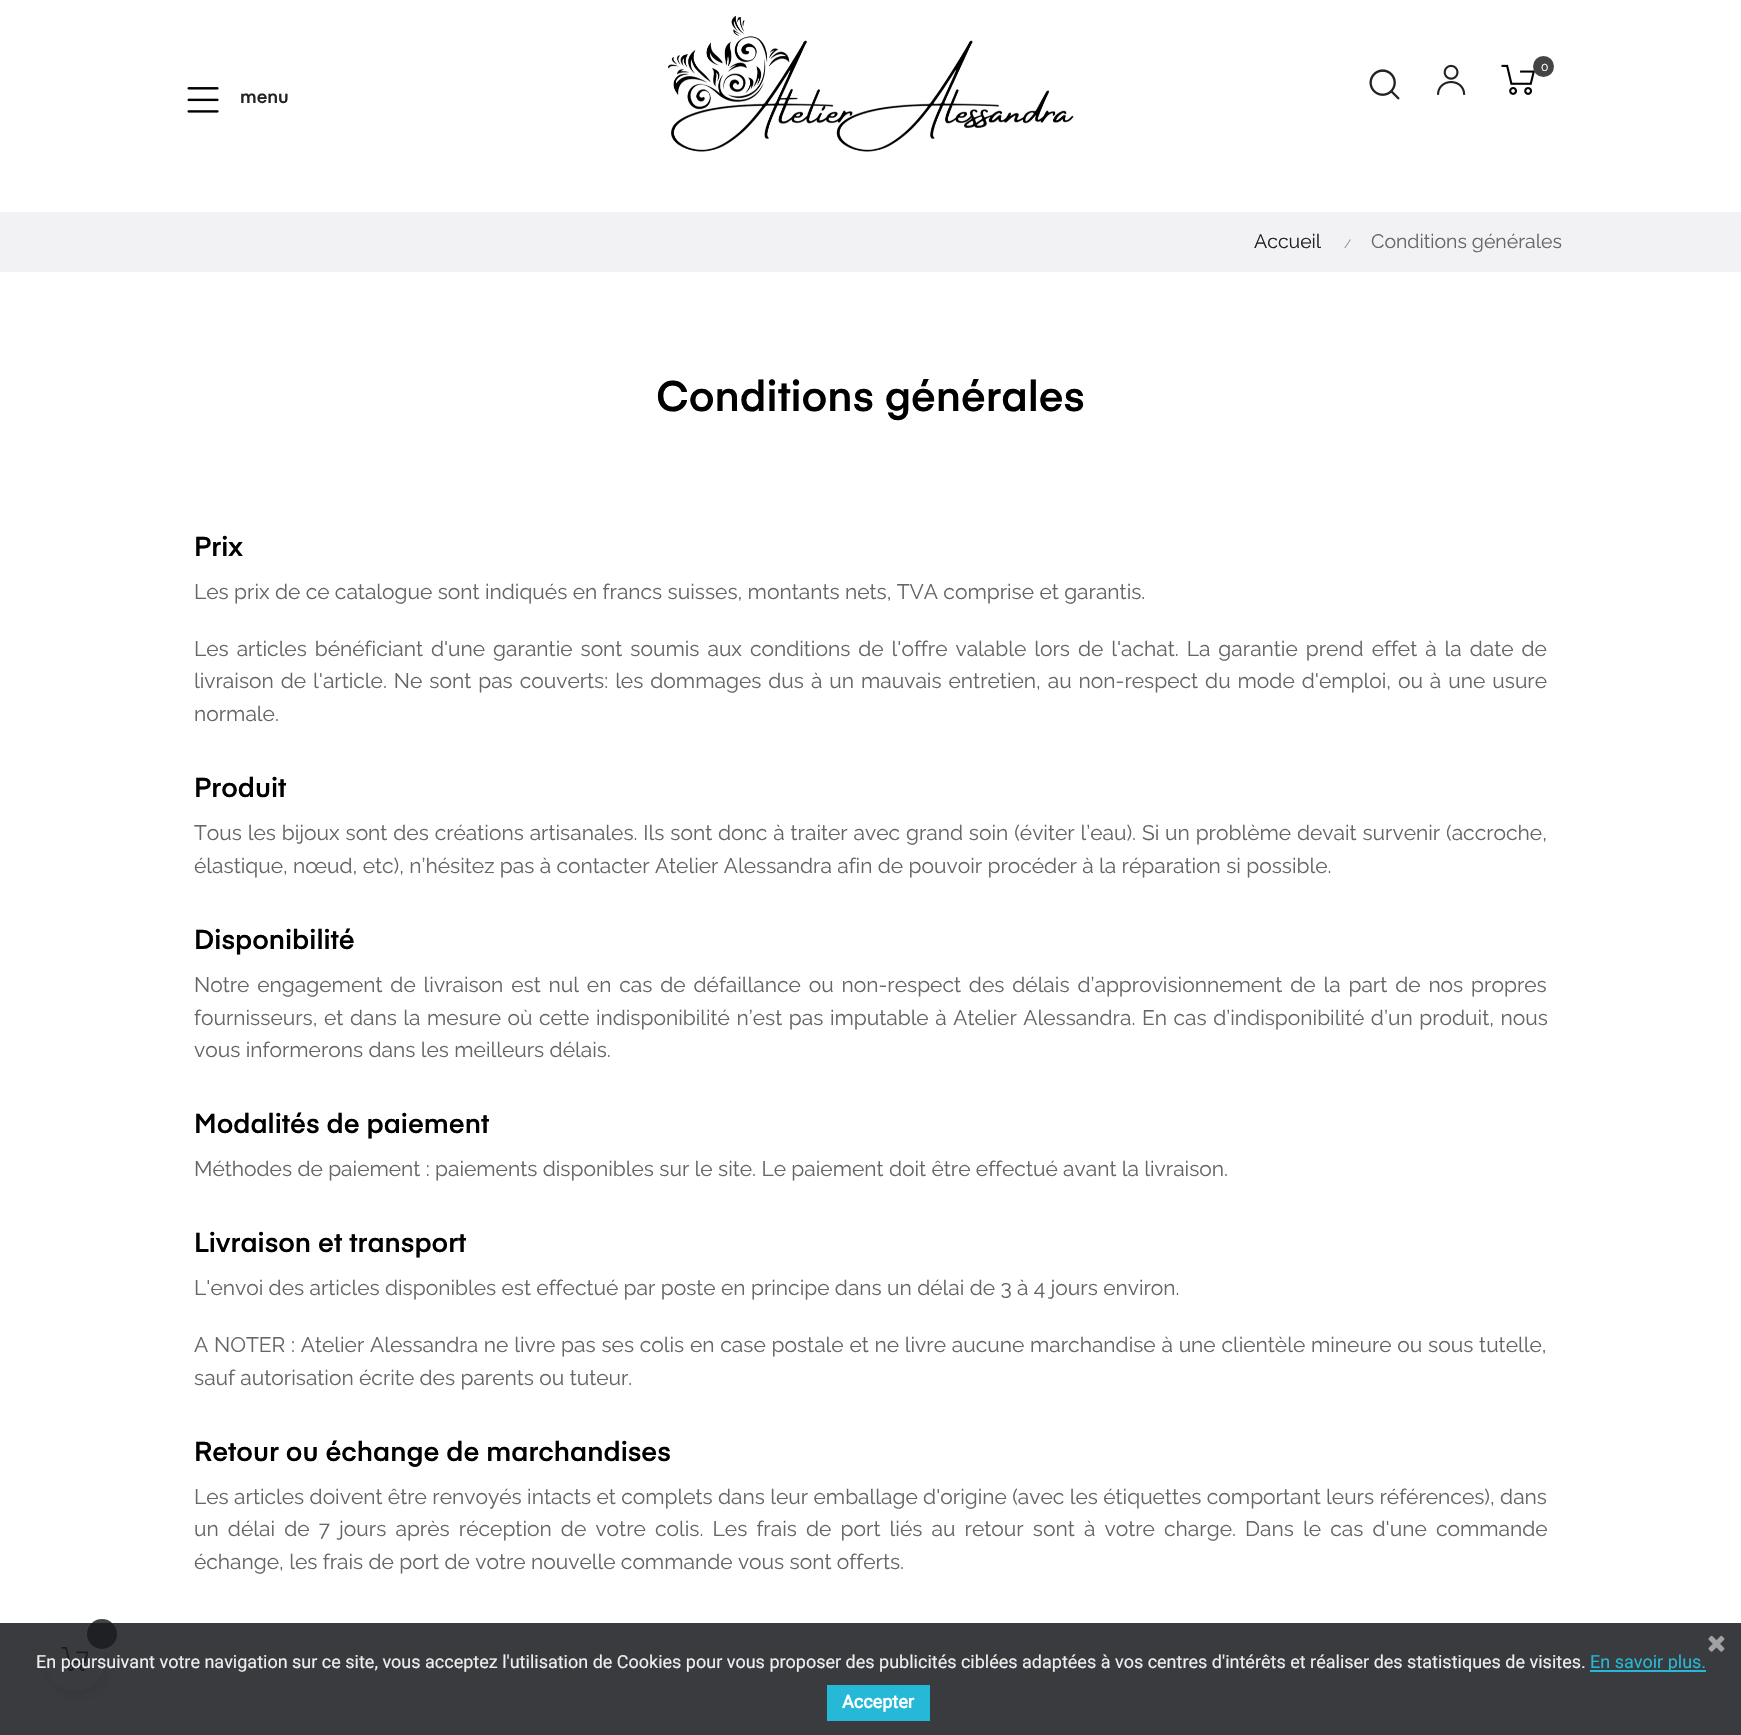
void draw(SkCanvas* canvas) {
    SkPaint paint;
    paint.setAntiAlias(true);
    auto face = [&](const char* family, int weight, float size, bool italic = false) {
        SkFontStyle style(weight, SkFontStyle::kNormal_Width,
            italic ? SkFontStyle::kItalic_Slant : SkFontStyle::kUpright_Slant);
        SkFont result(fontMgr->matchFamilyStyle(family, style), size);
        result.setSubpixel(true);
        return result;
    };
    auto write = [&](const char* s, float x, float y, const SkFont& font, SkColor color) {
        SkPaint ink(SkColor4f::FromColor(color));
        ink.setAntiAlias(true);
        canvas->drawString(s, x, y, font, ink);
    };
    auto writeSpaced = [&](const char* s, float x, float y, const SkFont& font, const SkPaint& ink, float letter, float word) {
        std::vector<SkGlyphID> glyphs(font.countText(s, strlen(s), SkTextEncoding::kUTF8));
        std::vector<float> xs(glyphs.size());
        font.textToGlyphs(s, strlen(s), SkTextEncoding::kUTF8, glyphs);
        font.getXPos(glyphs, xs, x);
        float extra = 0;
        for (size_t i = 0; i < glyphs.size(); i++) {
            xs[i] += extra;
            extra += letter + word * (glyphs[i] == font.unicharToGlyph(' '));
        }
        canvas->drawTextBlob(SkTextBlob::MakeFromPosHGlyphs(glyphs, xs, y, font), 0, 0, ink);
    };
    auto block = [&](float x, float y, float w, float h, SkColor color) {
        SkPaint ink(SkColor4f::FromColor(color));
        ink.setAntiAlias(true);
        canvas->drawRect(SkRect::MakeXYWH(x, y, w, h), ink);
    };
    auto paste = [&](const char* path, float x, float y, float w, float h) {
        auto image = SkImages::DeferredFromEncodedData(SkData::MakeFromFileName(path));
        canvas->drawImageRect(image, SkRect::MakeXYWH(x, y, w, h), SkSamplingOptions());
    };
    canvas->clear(SK_ColorWHITE);
    paste("pic1.png", 668, 15, 406, 137);
    paste("pic2.png", 1369, 69, 31, 31);
    paste("pic3.png", 1437, 64, 29, 31);
    paste("pic4.png", 1501, 64, 34, 31);
    paint.setColor(SkColorSetRGB(68, 68, 68));
    canvas->drawCircle(1543.5f, 66.5f, 10.5f, paint);
    auto kFont1 = face("Raleway", 400, 12);
    write("0", 1541, 71, kFont1, SK_ColorWHITE);
    paste("pic5.png", 187, 87, 32, 26);
    auto kFont2 = face("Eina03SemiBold", 600, 18);
    write("menu", 240, 103, kFont2, SkColorSetRGB(34, 34, 34));
    block(0, 212, 1741, 60, SkColorSetRGB(242, 242, 244));
    auto kFont3 = face("Raleway", 400, 19.5f);
    write("Accueil", 1254, 248, kFont3, SkColorSetRGB(34, 34, 34));
    write("/", 1344, 248, kFont1, SkColorSetRGB(136, 136, 136));
    write("Conditions générales", 1371, 248, kFont3, SkColorSetRGB(102, 102, 102));
    auto kFont4 = face("Eina03SemiBold", 600, 42);
    write("Conditions générales", 656, 411, kFont4, SK_ColorBLACK);
    auto kFont5 = face("Eina03SemiBold", 600, 27);
    write("Prix", 194, 556, kFont5, SK_ColorBLACK);
    auto kFont6 = face("Raleway", 400, 21);
    write("Les prix de ce catalogue sont indiqués en francs suisses, montants nets, TVA comprise et garantis.", 194, 599, kFont6, SkColorSetRGB(102, 102, 102));
    paint.setColor(SkColorSetRGB(102, 102, 102));
    writeSpaced("Les articles bénéficiant d'une garantie sont soumis aux conditions de l'offre valable lors de l'achat. La garantie prend effet à la date de", 194, 656, kFont6, paint, 0, 2.6f);
    writeSpaced("livraison de l'article. Ne sont pas couverts: les dommages dus à un mauvais entretien, au non-respect du mode d'emploi, ou à une usure", 194, 688, kFont6, paint, 0, 1.6f);
    write("normale.", 194, 721, kFont6, SkColorSetRGB(102, 102, 102));
    write("Produit", 194, 797, kFont5, SK_ColorBLACK);
    writeSpaced("Tous les bijoux sont des créations artisanales. Ils sont donc à traiter avec grand soin (éviter l’eau). Si un problème devait survenir (accroche,", 194, 840, kFont6, paint, 0, 0.5f);
    write("élastique, nœud, etc), n’hésitez pas à contacter Atelier Alessandra afin de pouvoir procéder à la réparation si possible.", 194, 873, kFont6, SkColorSetRGB(102, 102, 102));
    write("Disponibilité", 194, 949, kFont5, SK_ColorBLACK);
    writeSpaced("Notre engagement de livraison est nul en cas de défaillance ou non-respect des délais d’approvisionnement de la part de nos propres", 194, 992, kFont6, paint, 0, 2.5f);
    writeSpaced("fournisseurs, et dans la mesure où cette indisponibilité n’est pas imputable à Atelier Alessandra. En cas d’indisponibilité d’un produit, nous", 194, 1025, kFont6, paint, 0, 1.2f);
    write("vous informerons dans les meilleurs délais.", 194, 1057, kFont6, SkColorSetRGB(102, 102, 102));
    write("Modalités de paiement", 194, 1133, kFont5, SK_ColorBLACK);
    write("Méthodes de paiement : paiements disponibles sur le site. Le paiement doit être effectué avant la livraison.", 194, 1176, kFont6, SkColorSetRGB(102, 102, 102));
    write("Livraison et transport", 194, 1252, kFont5, SK_ColorBLACK);
    write("L'envoi des articles disponibles est effectué par poste en principe dans un délai de 3 à 4 jours environ.", 194, 1295, kFont6, SkColorSetRGB(102, 102, 102));
    writeSpaced("A NOTER : Atelier Alessandra ne livre pas ses colis en case postale et ne livre aucune marchandise à une clientèle mineure ou sous tutelle,", 194, 1352, kFont6, paint, 0, 0.4f);
    write("sauf autorisation écrite des parents ou tuteur.", 194, 1385, kFont6, SkColorSetRGB(102, 102, 102));
    write("Retour ou échange de marchandises", 194, 1461, kFont5, SK_ColorBLACK);
    write("Les articles doivent être renvoyés intacts et complets dans leur emballage d'origine (avec les étiquettes comportant leurs références), dans", 194, 1504, kFont6, SkColorSetRGB(102, 102, 102));
    writeSpaced("un délai de 7 jours après réception de votre colis. Les frais de port liés au retour sont à votre charge. Dans le cas d'une commande", 194, 1536, kFont6, paint, 0, 3.8f);
    write("échange, les frais de port de votre nouvelle commande vous sont offerts.", 194, 1569, kFont6, SkColorSetRGB(102, 102, 102));
    paint.setColor(SkColorSetARGB(38, 0, 0, 0));
    paint.setMaskFilter(SkMaskFilter::MakeBlur(kNormal_SkBlurStyle, 7.5f));
    canvas->drawRoundRect(SkRect::MakeXYWH(48, 1635, 60, 60), 30, 30, paint);
    paint.setMaskFilter(nullptr);
    paint.setColor(SK_ColorWHITE);
    canvas->drawCircle(75, 1661, 30, paint);
    paste("pic6.png", 61, 1647, 28, 24);
    paint.setStyle(SkPaint::kStroke_Style);
    paint.setStrokeWidth(3);
    canvas->drawCircle(102, 1634, 16.5f, paint);
    paint.setStyle(SkPaint::kFill_Style);
    paint.setColor(SkColorSetRGB(68, 68, 68));
    canvas->drawCircle(102, 1634, 15, paint);
    block(0, 1623, 1741, 112, SkColorSetARGB(217, 23, 25, 28));
    paste("pic7.png", 1708, 1635, 17, 17);
    auto kFont7 = face("Roboto", 400, 18);
    write("En poursuivant votre navigation sur ce site, vous acceptez l'utilisation de Cookies pour vous proposer des publicités ciblées adaptées à vos centres d'intérêts et réaliser des statistiques de visites.", 36, 1668, kFont7, SkColorSetRGB(239, 239, 239));
    block(1590, 1670, 116, 2, SkColorSetRGB(37, 185, 215));
    write("En savoir plus.", 1590, 1668, kFont7, SkColorSetRGB(37, 185, 215));
    block(827, 1685, 103, 36, SkColorSetRGB(37, 185, 215));
    auto kFont8 = face("Roboto", 700, 18);
    write("Accepter", 842, 1708, kFont8, SK_ColorWHITE);
}
